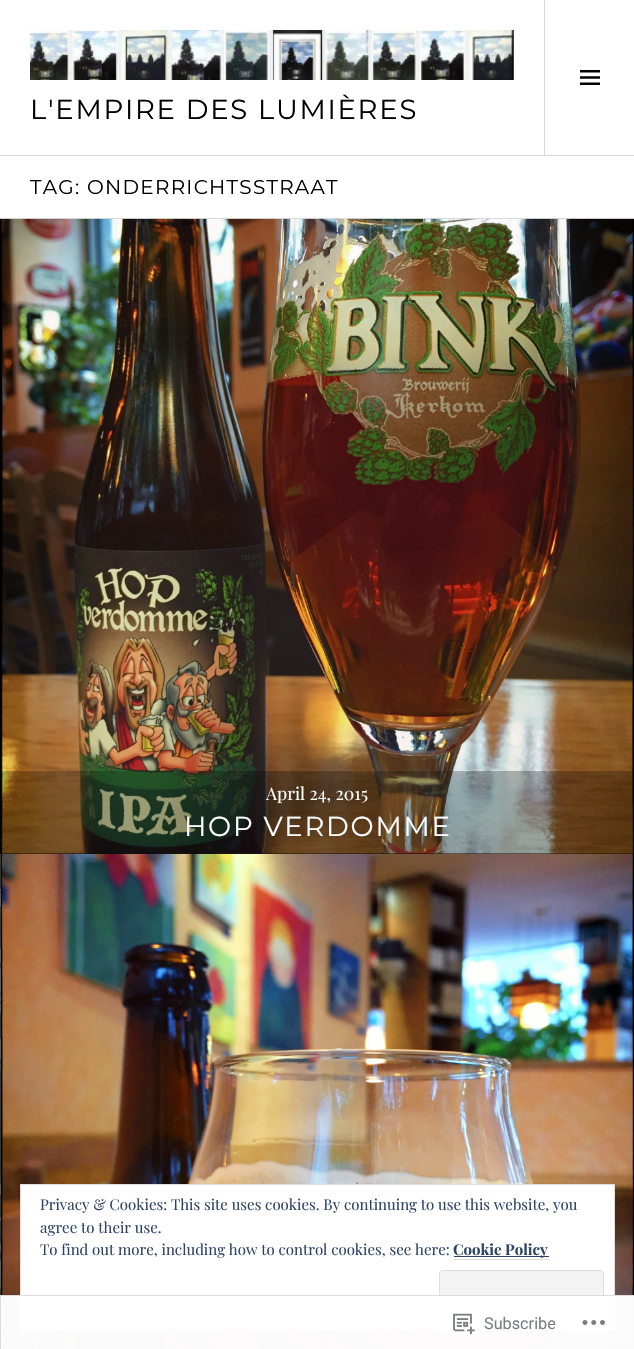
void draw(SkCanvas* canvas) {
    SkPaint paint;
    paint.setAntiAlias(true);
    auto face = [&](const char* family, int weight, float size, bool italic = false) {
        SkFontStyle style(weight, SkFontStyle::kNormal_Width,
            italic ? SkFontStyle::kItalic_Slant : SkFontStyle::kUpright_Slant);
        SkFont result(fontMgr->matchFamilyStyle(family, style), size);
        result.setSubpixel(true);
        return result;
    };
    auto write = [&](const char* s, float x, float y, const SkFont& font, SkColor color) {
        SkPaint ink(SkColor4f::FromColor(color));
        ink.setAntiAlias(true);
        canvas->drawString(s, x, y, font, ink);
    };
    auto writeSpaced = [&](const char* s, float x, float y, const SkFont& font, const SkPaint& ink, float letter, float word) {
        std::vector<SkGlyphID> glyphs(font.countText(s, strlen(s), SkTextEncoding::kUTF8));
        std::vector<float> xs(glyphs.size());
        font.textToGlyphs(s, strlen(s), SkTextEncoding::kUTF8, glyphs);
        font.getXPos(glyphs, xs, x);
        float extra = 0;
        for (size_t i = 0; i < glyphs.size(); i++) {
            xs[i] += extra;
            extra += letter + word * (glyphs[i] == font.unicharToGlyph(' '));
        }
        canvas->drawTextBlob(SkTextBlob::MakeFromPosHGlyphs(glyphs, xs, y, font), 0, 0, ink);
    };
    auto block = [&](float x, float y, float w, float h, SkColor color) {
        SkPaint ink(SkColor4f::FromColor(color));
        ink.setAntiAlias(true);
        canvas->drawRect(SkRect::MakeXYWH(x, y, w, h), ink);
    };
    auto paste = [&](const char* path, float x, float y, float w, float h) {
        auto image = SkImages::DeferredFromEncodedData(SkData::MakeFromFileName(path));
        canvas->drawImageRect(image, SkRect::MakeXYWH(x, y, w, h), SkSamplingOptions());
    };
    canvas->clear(SK_ColorWHITE);
    block(0, 155, 634, 1, SkColorSetRGB(216, 216, 216));
    paste("pic1.png", 30, 30, 484, 50);
    auto kFont1 = face("Montserrat", 400, 27.5f);
    paint.setColor(SK_ColorBLACK);
    writeSpaced("L'EMPIRE DES LUMIÈRES", 30, 119, kFont1, paint, 1.75f, 0);
    block(544, 0, 1, 155, SkColorSetRGB(216, 216, 216));
    paste("pic2.png", 580, 70, 20, 15);
    block(0, 218, 634, 1, SkColorSetRGB(216, 216, 216));
    auto kFont2 = face("Montserrat", 400, 20);
    writeSpaced("TAG: ONDERRICHTSSTRAAT", 30, 194, kFont2, paint, 1.25f, 0);
    block(0, 853, 634, 1, SK_ColorBLACK);
    paste("pic3.png", 0, 218, 634, 636);
    paste("pic4.png", 0, 853, 634, 496);
    block(1, 771, 633, 83, SkColorSetARGB(64, 0, 0, 0));
    auto kFont3 = face("Playfair Display", 400, 17.5f);
    write("April 24, 2015", 266, 800, kFont3, SK_ColorWHITE);
    paint.setColor(SK_ColorWHITE);
    writeSpaced("HOP VERDOMME", 184, 836, kFont1, paint, 1.75f, 0);
    canvas->drawRect(SkRect::MakeXYWH(20.5f, 1184.5f, 594, 145), paint);
    paint.setStyle(SkPaint::kStroke_Style);
    paint.setStrokeWidth(1);
    paint.setColor(SkColorSetRGB(222, 222, 222));
    canvas->drawRect(SkRect::MakeXYWH(20.5f, 1184.5f, 594, 145), paint);
    auto kFont4 = face("Playfair Display", 400, 15);
    write("Privacy & Cookies: This site uses cookies. By continuing to use this website, you", 40, 1210, kFont4, SkColorSetRGB(46, 68, 103));
    write("agree to their use.", 40, 1233, kFont4, SkColorSetRGB(46, 68, 103));
    write("To find out more, including how to control cookies, see here:", 40, 1255, kFont4, SkColorSetRGB(46, 68, 103));
    block(454, 1256, 95, 1, SkColorSetRGB(46, 68, 103));
    auto kFont5 = face("Playfair Display", 700, 15);
    write("Cookie Policy", 453, 1255, kFont5, SkColorSetRGB(46, 68, 103));
    block(454, 1259, 95, 1, SkColorSetRGB(216, 216, 216));
    paint.setStyle(SkPaint::kFill_Style);
    paint.setColor(SkColorSetRGB(243, 243, 243));
    canvas->drawRoundRect(SkRect::MakeXYWH(439.5f, 1270.5f, 164, 48), 3.5f, 3.5f, paint);
    paint.setStyle(SkPaint::kStroke_Style);
    paint.setColor(SkColorSetRGB(222, 222, 222));
    canvas->drawRoundRect(SkRect::MakeXYWH(439.5f, 1270.5f, 164, 48), 3.5f, 3.5f, paint);
    block(0, 1295, 634, 54, SkColorSetARGB(250, 255, 255, 255));
    paint.setColor(SkColorSetARGB(250, 220, 220, 222));
    canvas->drawRect(SkRect::MakeXYWH(0.5f, 1295.5f, 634, 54), paint);
    paste("pic5.png", 453, 1313, 22, 22);
    auto kFont6 = face("Roboto", 400, 16.25f);
    write("Subscribe", 484, 1329, kFont6, SkColorSetRGB(123, 127, 132));
    paste("pic6.png", 582, 1320, 23, 5);
}
